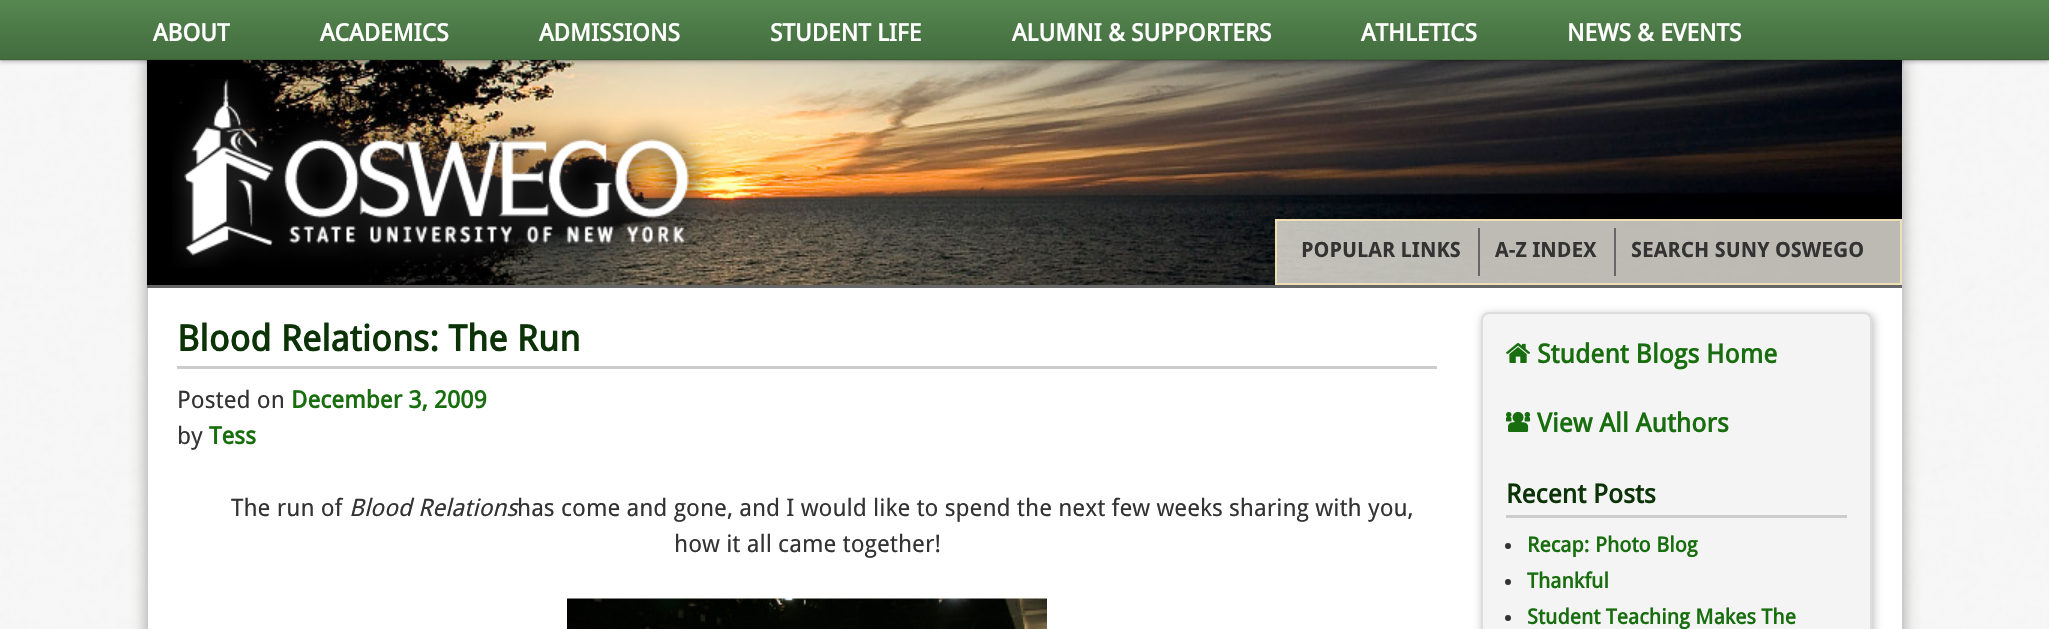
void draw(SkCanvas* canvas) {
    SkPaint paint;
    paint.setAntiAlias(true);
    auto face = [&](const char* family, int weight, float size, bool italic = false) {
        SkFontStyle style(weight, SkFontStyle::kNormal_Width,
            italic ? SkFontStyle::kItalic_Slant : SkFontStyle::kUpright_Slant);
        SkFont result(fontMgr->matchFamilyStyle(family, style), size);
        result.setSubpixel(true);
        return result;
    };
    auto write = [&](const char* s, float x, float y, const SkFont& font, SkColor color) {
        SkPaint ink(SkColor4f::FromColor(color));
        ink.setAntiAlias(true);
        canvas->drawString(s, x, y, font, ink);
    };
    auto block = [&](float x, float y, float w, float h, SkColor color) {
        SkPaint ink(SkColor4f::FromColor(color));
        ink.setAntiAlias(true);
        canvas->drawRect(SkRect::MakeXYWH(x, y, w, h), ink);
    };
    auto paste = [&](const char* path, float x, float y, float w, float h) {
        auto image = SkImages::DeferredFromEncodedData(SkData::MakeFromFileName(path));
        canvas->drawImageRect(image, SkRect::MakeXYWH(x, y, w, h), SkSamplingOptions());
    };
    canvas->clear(SK_ColorWHITE);
    paste("pic1.png", 0, 60, 2049, 569);
    paint.setColor(SkColorSetARGB(128, 91, 98, 90));
    paint.setMaskFilter(SkMaskFilter::MakeBlur(kNormal_SkBlurStyle, 7.5f));
    canvas->drawRect(SkRect::MakeXYWH(146, 59, 1758, 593), paint);
    paint.setMaskFilter(nullptr);
    block(148, 288, 1754, 341, SK_ColorWHITE);
    paint.setStyle(SkPaint::kStroke_Style);
    paint.setStrokeWidth(2);
    paint.setColor(SkColorSetRGB(204, 204, 204));
    canvas->drawRect(SkRect::MakeXYWH(147, 60, 1756, 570), paint);
    paste("pic2.png", 147, 60, 1755, 225);
    paint.setStyle(SkPaint::kFill_Style);
    paint.setColor(SkColorSetARGB(64, 0, 0, 0));
    paint.setMaskFilter(SkMaskFilter::MakeBlur(kNormal_SkBlurStyle, 2));
    canvas->drawRect(SkRect::MakeXYWH(0, 2, 2049, 60), paint);
    paint.setMaskFilter(nullptr);
    {
        const SkColor colors[] = {SkColorSetRGB(86, 135, 81), SkColorSetRGB(66, 108, 61)};
        const float stops[] = {0, 1};
        const SkPoint ends[] = {{1025, 0}, {1025, 60}};
        paint.setShader(SkGradientShader::MakeLinear(ends, colors, stops, 2, SkTileMode::kClamp));
        paint.setAlpha(255);
    }
    canvas->drawRect(SkRect::MakeXYWH(0, 0, 2049, 60), paint);
    block(0, 59, 2049, 2, SkColorSetARGB(26, 0, 0, 0));
    auto kFont1 = face("Droid Sans", 700, 24);
    write("ABOUT", 153, 41, kFont1, SK_ColorWHITE);
    write("ACADEMICS", 320, 41, kFont1, SK_ColorWHITE);
    write("ADMISSIONS", 539, 41, kFont1, SK_ColorWHITE);
    write("STUDENT LIFE", 770, 41, kFont1, SK_ColorWHITE);
    write("ALUMNI & SUPPORTERS", 1012, 41, kFont1, SK_ColorWHITE);
    write("ATHLETICS", 1361, 41, kFont1, SK_ColorWHITE);
    write("NEWS & EVENTS", 1567, 41, kFont1, SK_ColorWHITE);
    block(147, 285, 1755, 3, SkColorSetRGB(102, 102, 102));
    paste("pic3.png", 172, 79, 538, 189);
    paint.setShader(nullptr);
    paint.setColor(SkColorSetARGB(191, 251, 248, 237));
    canvas->drawRect(SkRect::MakeXYWH(1276, 220, 625, 64), paint);
    paint.setStyle(SkPaint::kStroke_Style);
    paint.setColor(SkColorSetRGB(240, 223, 178));
    canvas->drawRect(SkRect::MakeXYWH(1276, 220, 625, 64), paint);
    block(1478, 228, 2, 48, SkColorSetRGB(102, 102, 102));
    auto kFont2 = face("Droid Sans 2", 700, 21);
    write("POPULAR LINKS", 1301, 257, kFont2, SkColorSetRGB(51, 51, 51));
    block(1614, 228, 2, 48, SkColorSetRGB(102, 102, 102));
    write("A-Z INDEX", 1495, 257, kFont2, SkColorSetRGB(51, 51, 51));
    write("SEARCH SUNY OSWEGO", 1631, 257, kFont2, SkColorSetRGB(51, 51, 51));
    block(177, 366, 1260, 3, SkColorSetRGB(204, 204, 204));
    auto kFont3 = face("Droid Sans", 700, 36);
    write("Blood Relations: The Run", 177, 351, kFont3, SkColorSetRGB(11, 51, 7));
    auto kFont4 = face("Droid Sans", 400, 24);
    write("Posted on", 177, 408, kFont4, SkColorSetRGB(51, 51, 51));
    write("December 3, 2009", 291, 408, kFont1, SkColorSetRGB(24, 110, 14));
    write("by", 177, 444, kFont4, SkColorSetRGB(51, 51, 51));
    write("Tess", 209, 444, kFont1, SkColorSetRGB(24, 110, 14));
    write("The run of", 231, 516, kFont4, SkColorSetRGB(51, 51, 51));
    auto kFont5 = face("Droid Sans", 400, 24, true);
    write("Blood Relations", 349, 516, kFont5, SkColorSetRGB(51, 51, 51));
    write("has come and gone, and I would like to spend the next few weeks sharing with you,", 517, 516, kFont4, SkColorSetRGB(51, 51, 51));
    write("how it all came together!", 674, 552, kFont4, SkColorSetRGB(51, 51, 51));
    paste("pic4.png", 567, 598, 480, 31);
    paint.setStyle(SkPaint::kFill_Style);
    paint.setColor(SkColorSetRGB(192, 192, 192));
    paint.setMaskFilter(SkMaskFilter::MakeBlur(kNormal_SkBlurStyle, 4));
    canvas->drawRoundRect(SkRect::MakeXYWH(1482, 314, 392, 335), 8, 8, paint);
    paint.setMaskFilter(nullptr);
    paint.setColor(SkColorSetRGB(244, 244, 244));
    canvas->drawRoundRect(SkRect::MakeXYWH(1482, 313, 389, 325), 7, 7, paint);
    paint.setStyle(SkPaint::kStroke_Style);
    paint.setColor(SkColorSetRGB(221, 221, 221));
    canvas->drawRoundRect(SkRect::MakeXYWH(1482, 313, 389, 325), 7, 7, paint);
    paste("pic5.png", 1506, 343, 25, 20);
    auto kFont6 = face("Droid Sans", 700, 26.25f);
    write("Student Blogs Home", 1537, 363, kFont6, SkColorSetRGB(24, 110, 14));
    paste("pic6.png", 1506, 411, 25, 21);
    write("View All Authors", 1537, 432, kFont6, SkColorSetRGB(24, 110, 14));
    block(1506, 515, 341, 3, SkColorSetRGB(204, 204, 204));
    write("Recent Posts", 1506, 503, kFont6, SkColorSetRGB(11, 51, 7));
    paint.setStyle(SkPaint::kFill_Style);
    paint.setColor(SkColorSetRGB(51, 51, 51));
    canvas->drawCircle(1508, 546, 3, paint);
    auto kFont7 = face("Droid Sans", 700, 21);
    write("Recap: Photo Blog", 1527, 552, kFont7, SkColorSetRGB(24, 110, 14));
    canvas->drawCircle(1508, 582, 3, paint);
    write("Thankful", 1527, 588, kFont7, SkColorSetRGB(24, 110, 14));
    canvas->drawCircle(1508, 618, 3, paint);
    write("Student Teaching Makes The", 1527, 624, kFont7, SkColorSetRGB(24, 110, 14));
}
